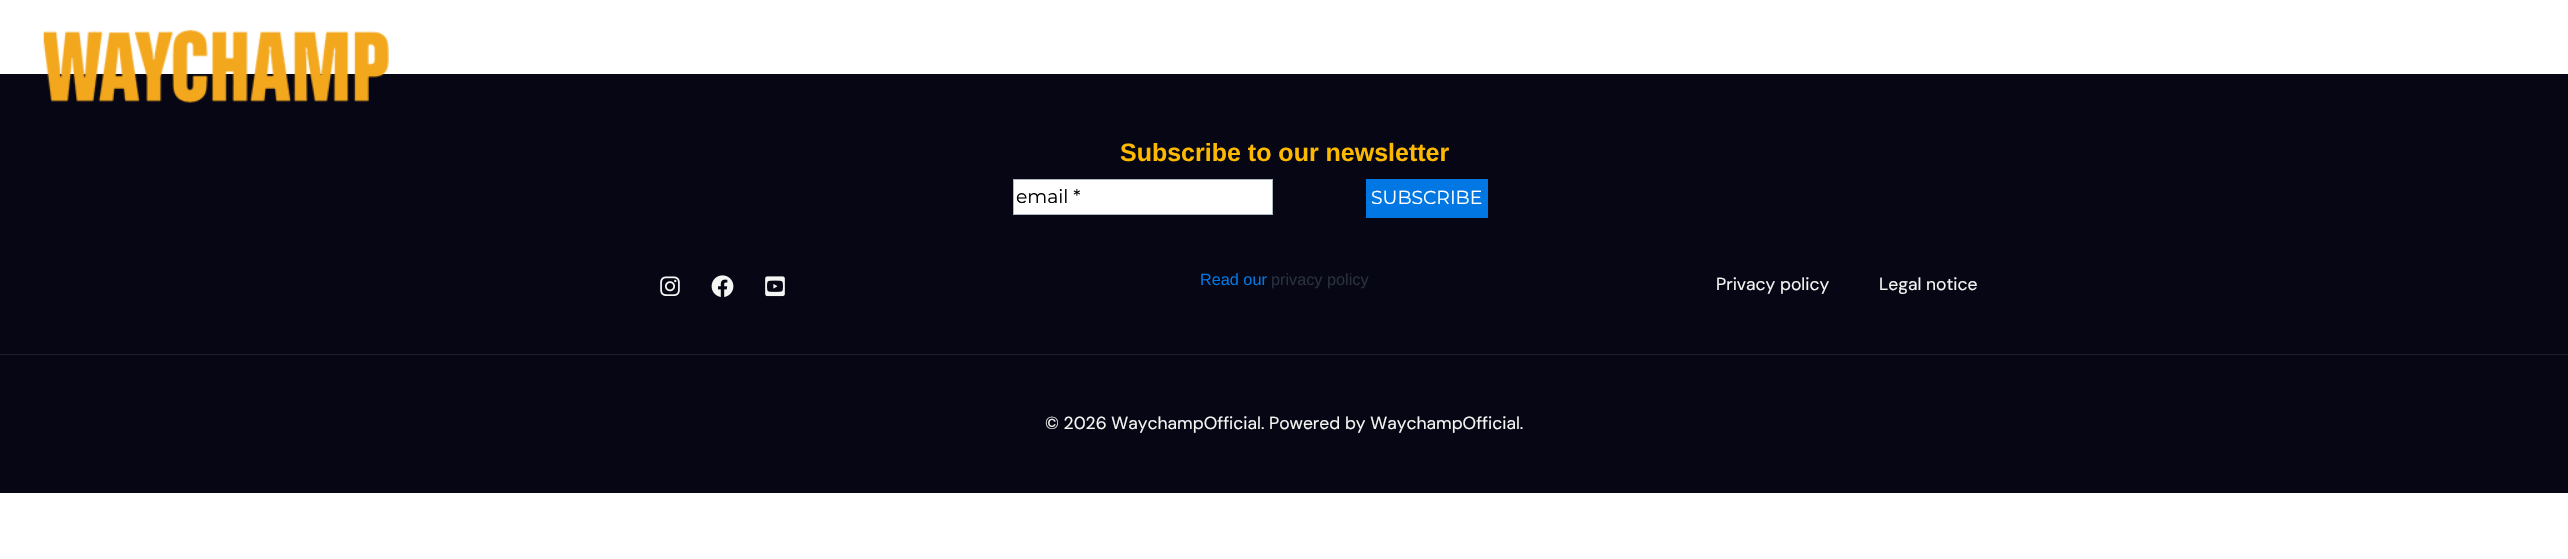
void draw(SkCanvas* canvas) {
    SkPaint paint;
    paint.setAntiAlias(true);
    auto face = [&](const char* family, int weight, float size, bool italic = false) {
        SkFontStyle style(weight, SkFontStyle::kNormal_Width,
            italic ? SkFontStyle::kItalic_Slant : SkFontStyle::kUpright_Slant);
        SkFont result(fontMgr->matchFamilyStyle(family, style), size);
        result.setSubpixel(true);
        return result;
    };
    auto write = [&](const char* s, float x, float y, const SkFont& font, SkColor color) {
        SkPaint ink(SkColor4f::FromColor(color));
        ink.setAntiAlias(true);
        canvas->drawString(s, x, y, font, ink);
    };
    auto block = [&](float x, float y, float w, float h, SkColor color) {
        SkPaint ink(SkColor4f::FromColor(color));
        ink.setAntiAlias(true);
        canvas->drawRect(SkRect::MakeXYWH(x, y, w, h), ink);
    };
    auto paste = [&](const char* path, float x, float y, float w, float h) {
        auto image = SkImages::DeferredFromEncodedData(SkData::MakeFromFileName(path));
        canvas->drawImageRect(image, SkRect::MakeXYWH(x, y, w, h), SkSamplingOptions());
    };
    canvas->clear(SK_ColorWHITE);
    block(0, 74, 2568, 280, SkColorSetRGB(7, 6, 20));
    paste("pic1.png", 43, 29, 346, 74);
    paste("pic2.png", 660, 276, 20, 20);
    paste("pic3.png", 711, 275, 23, 22);
    paste("pic4.png", 765, 276, 20, 21);
    auto kFont1 = face("Liberation Sans", 700, 25);
    write("Subscribe to our newsletter", 1120, 161, kFont1, SkColorSetRGB(252, 185, 0));
    paint.setColor(SK_ColorWHITE);
    canvas->drawRect(SkRect::MakeXYWH(1013.5f, 179.5f, 259, 35), paint);
    paint.setStyle(SkPaint::kStroke_Style);
    paint.setStrokeWidth(1);
    paint.setColor(SkColorSetRGB(171, 184, 195));
    canvas->drawRect(SkRect::MakeXYWH(1013.5f, 179.5f, 259, 35), paint);
    auto kFont2 = face("Montserrat", 400, 18.75f);
    write("email *", 1016, 203, kFont2, SK_ColorBLACK);
    block(1366, 179, 122, 39, SkColorSetRGB(1, 119, 227));
    write("SUBSCRIBE", 1371, 204, kFont2, SK_ColorWHITE);
    auto kFont3 = face("Liberation Sans", 400, 16.25f);
    write("Read our", 1200, 285, kFont3, SkColorSetRGB(1, 119, 227));
    write("privacy policy", 1271, 285, kFont3, SkColorSetRGB(40, 48, 61));
    auto kFont4 = face("DM Sans", 400, 17.5f);
    write("Privacy policy", 1716, 290, kFont4, SkColorSetRGB(244, 246, 243));
    write("Legal notice", 1879, 290, kFont4, SkColorSetRGB(244, 246, 243));
    block(0, 355, 2568, 138, SkColorSetRGB(7, 6, 20));
    block(0, 354, 2568, 1, SkColorSetRGB(32, 31, 44));
    write("© 2026 WaychampOfficial. Powered by WaychampOfficial.", 1045, 429, kFont4, SkColorSetRGB(244, 246, 243));
}
